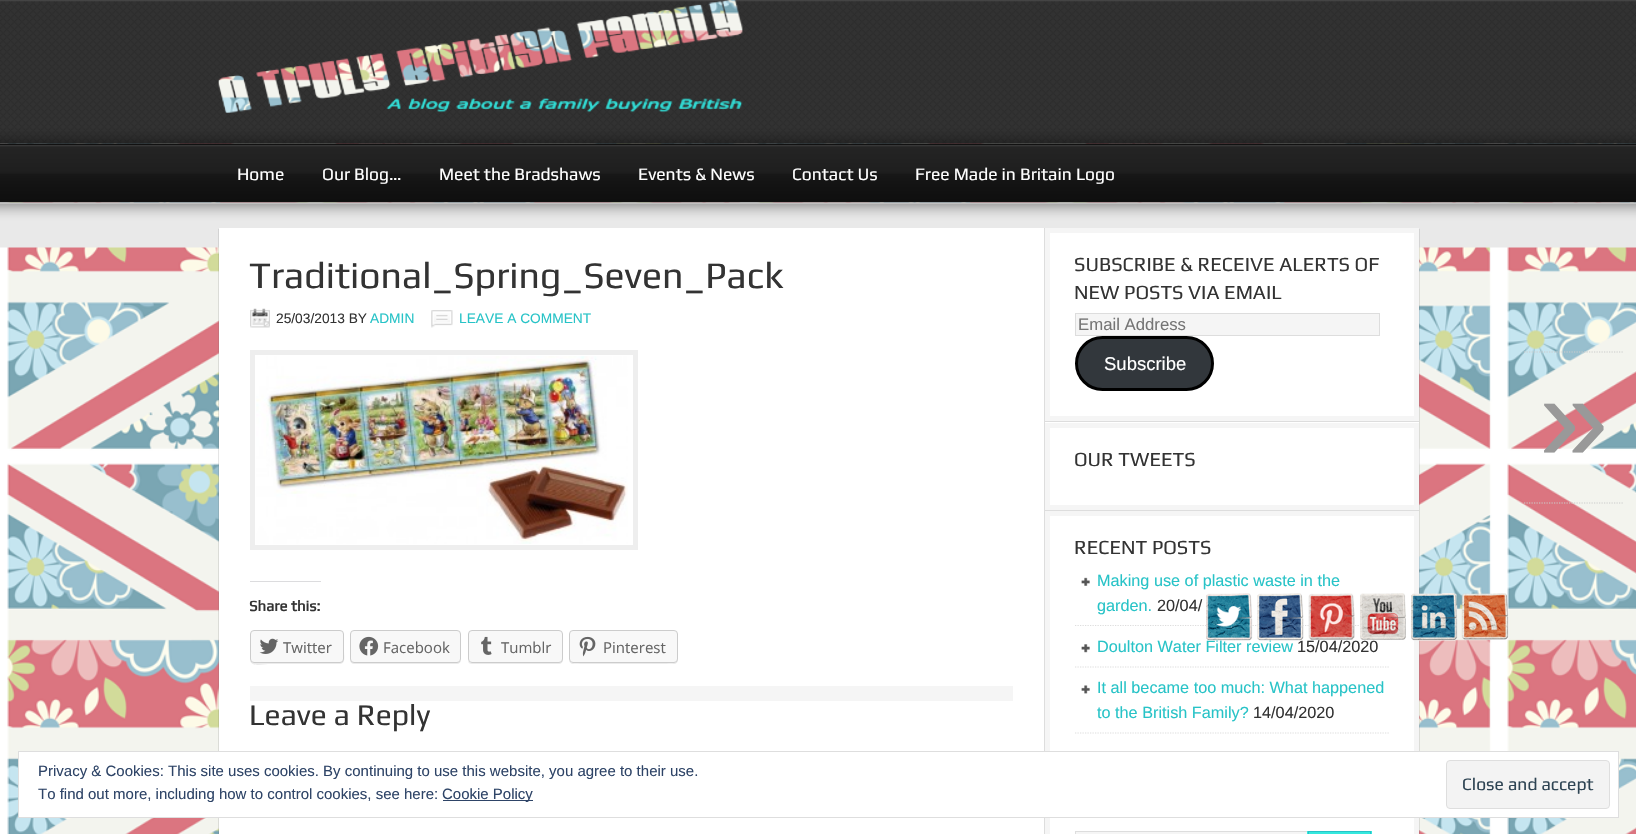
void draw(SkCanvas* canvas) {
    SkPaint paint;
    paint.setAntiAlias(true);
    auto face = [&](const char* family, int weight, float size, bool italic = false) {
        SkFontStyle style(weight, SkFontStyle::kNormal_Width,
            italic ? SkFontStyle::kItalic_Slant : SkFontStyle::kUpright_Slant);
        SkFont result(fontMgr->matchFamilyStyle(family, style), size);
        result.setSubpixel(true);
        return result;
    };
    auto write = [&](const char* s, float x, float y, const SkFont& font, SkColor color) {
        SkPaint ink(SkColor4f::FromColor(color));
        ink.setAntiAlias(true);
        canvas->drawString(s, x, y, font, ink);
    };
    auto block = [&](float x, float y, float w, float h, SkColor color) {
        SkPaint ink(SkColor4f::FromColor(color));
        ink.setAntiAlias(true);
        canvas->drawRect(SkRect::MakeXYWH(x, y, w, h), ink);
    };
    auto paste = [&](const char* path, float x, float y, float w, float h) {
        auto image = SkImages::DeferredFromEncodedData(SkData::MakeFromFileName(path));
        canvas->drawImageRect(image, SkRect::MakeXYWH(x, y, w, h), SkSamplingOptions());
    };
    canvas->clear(SK_ColorWHITE);
    paste("pic1.png", 0, 143, 1636, 691);
    paste("pic2.png", 0, 0, 1636, 144);
    paste("pic3.png", 218, 0, 525, 113);
    paste("pic4.png", 218, 0, 524, 113);
    paste("pic5.png", 0, 143, 1636, 60);
    block(0, 201, 1636, 1, SkColorSetRGB(17, 17, 17));
    auto kFont1 = face("Play", 400, 17.5f);
    write("Home", 237, 180, kFont1, SK_ColorWHITE);
    write("Our Blog…", 322, 180, kFont1, SK_ColorWHITE);
    write("Meet the Bradshaws", 439, 180, kFont1, SK_ColorWHITE);
    write("Events & News", 638, 180, kFont1, SK_ColorWHITE);
    write("Contact Us", 792, 180, kFont1, SK_ColorWHITE);
    write("Free Made in Britain Logo", 915, 180, kFont1, SK_ColorWHITE);
    paste("pic6.png", 0, 202, 1636, 46);
    paint.setColor(SkColorSetRGB(102, 102, 102));
    paint.setMaskFilter(SkMaskFilter::MakeBlur(kNormal_SkBlurStyle, 0.5f));
    canvas->drawRect(SkRect::MakeXYWH(219, 229, 1200, 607), paint);
    paint.setMaskFilter(nullptr);
    block(219, 228, 1200, 606, SK_ColorWHITE);
    auto kFont2 = face("Play", 400, 37.5f);
    write("Traditional_Spring_Seven_Pack", 249, 288, kFont2, SkColorSetRGB(51, 51, 51));
    paste("pic7.png", 250, 308, 20, 20);
    auto kFont3 = face("Liberation Sans", 400, 13.75f);
    write("25/03/2013 BY", 276, 323, kFont3, SkColorSetRGB(51, 51, 51));
    write("ADMIN", 370, 323, kFont3, SkColorSetRGB(39, 195, 199));
    paste("pic8.png", 431, 310, 22, 18);
    write("LEAVE A COMMENT", 459, 323, kFont3, SkColorSetRGB(39, 195, 199));
    paint.setStyle(SkPaint::kStroke_Style);
    paint.setStrokeWidth(5);
    paint.setColor(SkColorSetRGB(238, 238, 238));
    canvas->drawRect(SkRect::MakeXYWH(252.5f, 352.5f, 383, 195), paint);
    paste("pic9.png", 256, 356, 372, 188);
    block(250, 581, 71, 1, SkColorSetRGB(220, 220, 222));
    auto kFont4 = face("Play", 700, 15);
    write("Share this:", 249, 611, kFont4, SkColorSetRGB(51, 51, 51));
    paint.setStyle(SkPaint::kFill_Style);
    paint.setColor(SkColorSetRGB(235, 235, 235));
    canvas->drawPath(SkPathBuilder().moveTo(250, 659).cubicTo(250, 668, 263, 664, 268, 664).lineTo(340, 664).cubicTo(346, 664, 344, 655, 344, 652).lineTo(344, 634).lineTo(344, 655).cubicTo(344, 657, 344, 662, 340, 662).lineTo(268, 662).cubicTo(261, 662, 250, 665, 250, 659).close().detach(), paint);
    paint.setColor(SkColorSetRGB(248, 248, 248));
    canvas->drawRoundRect(SkRect::MakeXYWH(250.5f, 630.5f, 93, 32), 3.5f, 3.5f, paint);
    paint.setStyle(SkPaint::kStroke_Style);
    paint.setStrokeWidth(1);
    paint.setColor(SkColorSetRGB(204, 204, 204));
    canvas->drawRoundRect(SkRect::MakeXYWH(250.5f, 630.5f, 93, 32), 3.5f, 3.5f, paint);
    paste("pic10.png", 259, 638, 20, 16);
    auto kFont5 = face("Open Sans", 400, 15);
    write("Twitter", 283, 653, kFont5, SkColorSetRGB(101, 101, 101));
    paint.setStyle(SkPaint::kFill_Style);
    paint.setColor(SkColorSetRGB(235, 235, 235));
    canvas->drawPath(SkPathBuilder().moveTo(350, 659).lineTo(350, 660).cubicTo(350, 662, 352, 664, 354, 664).lineTo(457, 664).cubicTo(459, 664, 461, 662, 461, 660).cubicTo(460, 662, 459, 662, 458, 662).lineTo(354, 662).cubicTo(352, 662, 350, 661, 350, 659).close().detach(), paint);
    paint.setColor(SkColorSetRGB(248, 248, 248));
    canvas->drawRoundRect(SkRect::MakeXYWH(350.5f, 630.5f, 110, 32), 3.5f, 3.5f, paint);
    paint.setStyle(SkPaint::kStroke_Style);
    paint.setColor(SkColorSetRGB(204, 204, 204));
    canvas->drawRoundRect(SkRect::MakeXYWH(350.5f, 630.5f, 110, 32), 3.5f, 3.5f, paint);
    paste("pic11.png", 359, 636, 20, 20);
    write("Facebook", 383, 653, kFont5, SkColorSetRGB(101, 101, 101));
    paint.setStyle(SkPaint::kFill_Style);
    paint.setColor(SkColorSetRGB(235, 235, 235));
    canvas->drawPath(SkPathBuilder().moveTo(468, 661).cubicTo(468, 663, 470, 664, 472, 664).lineTo(559, 664).cubicTo(561, 664, 563, 662, 563, 660).lineTo(563, 635).lineTo(562, 633).lineTo(562, 650).cubicTo(562, 666, 562, 662, 544, 662).lineTo(486, 662).cubicTo(484, 662, 471, 665, 468, 661).close().detach(), paint);
    paint.setColor(SkColorSetRGB(248, 248, 248));
    canvas->drawRoundRect(SkRect::MakeXYWH(468.5f, 630.5f, 94, 32), 3.5f, 3.5f, paint);
    paint.setStyle(SkPaint::kStroke_Style);
    paint.setColor(SkColorSetRGB(204, 204, 204));
    canvas->drawRoundRect(SkRect::MakeXYWH(468.5f, 630.5f, 94, 32), 3.5f, 3.5f, paint);
    paste("pic12.png", 481, 636, 11, 19);
    write("Tumblr", 501, 653, kFont5, SkColorSetRGB(101, 101, 101));
    paint.setStyle(SkPaint::kFill_Style);
    paint.setColor(SkColorSetRGB(235, 235, 235));
    canvas->drawPath(SkPathBuilder().moveTo(569, 660).cubicTo(569, 662, 571, 664, 573, 664).lineTo(674, 664).cubicTo(676, 664, 678, 662, 678, 660).lineTo(678, 635).lineTo(677, 633).lineTo(677, 660).cubicTo(676, 666, 662, 662, 657, 662).lineTo(589, 662).cubicTo(586, 662, 571, 666, 569, 660).close().detach(), paint);
    paint.setColor(SkColorSetRGB(248, 248, 248));
    canvas->drawRoundRect(SkRect::MakeXYWH(569.5f, 630.5f, 108, 32), 3.5f, 3.5f, paint);
    paint.setStyle(SkPaint::kStroke_Style);
    paint.setColor(SkColorSetRGB(204, 204, 204));
    canvas->drawRoundRect(SkRect::MakeXYWH(569.5f, 630.5f, 108, 32), 3.5f, 3.5f, paint);
    paste("pic13.png", 579, 636, 17, 21);
    write("Pinterest", 603, 653, kFont5, SkColorSetRGB(101, 101, 101));
    block(250, 686, 763, 15, SkColorSetRGB(245, 245, 245));
    auto kFont6 = face("Play", 400, 30);
    write("Leave a Reply", 249, 725, kFont6, SkColorSetRGB(51, 51, 51));
    block(1044, 421, 375, 1, SkColorSetRGB(221, 221, 221));
    block(1044, 228, 1, 195, SkColorSetRGB(221, 221, 221));
    paint.setStrokeWidth(5);
    paint.setColor(SkColorSetRGB(245, 245, 245));
    canvas->drawRect(SkRect::MakeXYWH(1047.5f, 230.5f, 369, 188), paint);
    auto kFont7 = face("Play", 400, 20);
    write("SUBSCRIBE & RECEIVE ALERTS OF", 1074, 271, kFont7, SkColorSetRGB(51, 51, 51));
    write("NEW POSTS VIA EMAIL", 1074, 299, kFont7, SkColorSetRGB(51, 51, 51));
    paint.setStyle(SkPaint::kFill_Style);
    canvas->drawRect(SkRect::MakeXYWH(1075.5f, 313.5f, 304, 22), paint);
    paint.setStyle(SkPaint::kStroke_Style);
    paint.setStrokeWidth(1);
    paint.setColor(SkColorSetRGB(221, 221, 221));
    canvas->drawRect(SkRect::MakeXYWH(1075.5f, 313.5f, 304, 22), paint);
    auto kFont8 = face("Liberation Sans", 400, 16.75f);
    write("Email Address", 1078, 330, kFont8, SkColorSetRGB(117, 117, 117));
    paint.setStyle(SkPaint::kFill_Style);
    paint.setColor(SkColorSetRGB(50, 55, 60));
    canvas->drawRoundRect(SkRect::MakeXYWH(1076.5f, 337.5f, 136, 52), 26, 26, paint);
    paint.setStyle(SkPaint::kStroke_Style);
    paint.setStrokeWidth(3);
    paint.setColor(SK_ColorBLACK);
    canvas->drawRoundRect(SkRect::MakeXYWH(1076.5f, 337.5f, 136, 52), 26, 26, paint);
    auto kFont9 = face("Liberation Sans", 400, 18.5f);
    write("Subscribe", 1104, 370, kFont9, SK_ColorWHITE);
    block(1044, 510, 375, 1, SkColorSetRGB(221, 221, 221));
    block(1044, 423, 1, 328, SkColorSetRGB(221, 221, 221));
    paint.setStrokeWidth(5);
    paint.setColor(SkColorSetRGB(245, 245, 245));
    canvas->drawRect(SkRect::MakeXYWH(1047.5f, 425.5f, 369, 82), paint);
    write("OUR TWEETS", 1074, 466, kFont7, SkColorSetRGB(51, 51, 51));
    canvas->drawRect(SkRect::MakeXYWH(1047.5f, 513.5f, 369, 250), paint);
    write("RECENT POSTS", 1074, 554, kFont7, SkColorSetRGB(51, 51, 51));
    paste("pic14.png", 1081, 577, 9, 9);
    paint.setStrokeWidth(1.2f);
    paint.setColor(SkColorSetRGB(221, 221, 221));
    paint.setPathEffect(SkDashPathEffect::Make({{1.25f, 1.25f}}, 0));
    canvas->drawPath(SkPathBuilder().moveTo(1075, 625.5f).lineTo(1389, 625.5f).detach(), paint);
    paint.setPathEffect(nullptr);
    auto kFont10 = face("Liberation Sans", 400, 16.25f);
    write("Making use of plastic waste in the", 1097, 586, kFont10, SkColorSetRGB(39, 195, 199));
    write("garden.", 1097, 611, kFont10, SkColorSetRGB(39, 195, 199));
    write("20/04/", 1157, 611, kFont10, SkColorSetRGB(51, 51, 51));
    paste("pic15.png", 1081, 644, 9, 9);
    paint.setPathEffect(SkDashPathEffect::Make({{1.25f, 1.25f}}, 0));
    canvas->drawPath(SkPathBuilder().moveTo(1075, 667).lineTo(1389, 667).detach(), paint);
    paint.setPathEffect(nullptr);
    write("Doulton Water Filter review", 1097, 652, kFont10, SkColorSetRGB(39, 195, 199));
    write("15/04/2020", 1297, 652, kFont10, SkColorSetRGB(51, 51, 51));
    paste("pic16.png", 1081, 685, 9, 9);
    paint.setPathEffect(SkDashPathEffect::Make({{1.25f, 1.25f}}, 0));
    canvas->drawPath(SkPathBuilder().moveTo(1075, 733).lineTo(1389, 733).detach(), paint);
    paint.setPathEffect(nullptr);
    write("It all became too much: What happened", 1097, 693, kFont10, SkColorSetRGB(39, 195, 199));
    write("to the British Family?", 1097, 718, kFont10, SkColorSetRGB(39, 195, 199));
    write("14/04/2020", 1253, 718, kFont10, SkColorSetRGB(51, 51, 51));
    block(1044, 818, 1, 16, SkColorSetRGB(221, 221, 221));
    paint.setStrokeWidth(5);
    paint.setColor(SkColorSetRGB(245, 245, 245));
    canvas->drawRect(SkRect::MakeXYWH(1047.5f, 770.5f, 369, 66), paint);
    paint.setStyle(SkPaint::kFill_Style);
    canvas->drawRect(SkRect::MakeXYWH(1075.5f, 831.5f, 239, 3), paint);
    paint.setStyle(SkPaint::kStroke_Style);
    paint.setStrokeWidth(1);
    paint.setColor(SkColorSetRGB(221, 221, 221));
    canvas->drawRect(SkRect::MakeXYWH(1075.5f, 831.5f, 239, 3), paint);
    block(1307, 831, 65, 3, SkColorSetRGB(53, 232, 221));
    paint.setColor(SkColorSetRGB(39, 195, 199));
    canvas->drawRect(SkRect::MakeXYWH(1308.5f, 831.5f, 62, 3), paint);
    paint.setStrokeWidth(1.2f);
    paint.setColor(SkColorSetRGB(204, 204, 204));
    paint.setPathEffect(SkDashPathEffect::Make({{1.25f, 1.25f}}, 0));
    canvas->drawPath(SkPathBuilder().moveTo(1524, 352).lineTo(1624, 352).detach(), paint);
    paint.setPathEffect(nullptr);
    paint.setPathEffect(SkDashPathEffect::Make({{1.25f, 1.25f}}, 0));
    canvas->drawPath(SkPathBuilder().moveTo(1524, 503).lineTo(1624, 503).detach(), paint);
    paint.setPathEffect(nullptr);
    auto kFont11 = face("Liberation Sans", 400, 125);
    write("»", 1539, 461, kFont11, SkColorSetRGB(153, 153, 153));
    paste("pic17.png", 1206, 593, 47, 48);
    paste("pic18.png", 1257, 593, 47, 48);
    paste("pic19.png", 1308, 593, 47, 47);
    paste("pic20.png", 1360, 593, 46, 47);
    paste("pic21.png", 1411, 593, 47, 48);
    paste("pic22.png", 1461, 593, 48, 47);
    paint.setStyle(SkPaint::kFill_Style);
    paint.setColor(SK_ColorWHITE);
    canvas->drawRect(SkRect::MakeXYWH(18.5f, 751.5f, 1600, 66), paint);
    paint.setStyle(SkPaint::kStroke_Style);
    paint.setStrokeWidth(1);
    paint.setColor(SkColorSetRGB(222, 222, 222));
    canvas->drawRect(SkRect::MakeXYWH(18.5f, 751.5f, 1600, 66), paint);
    auto kFont12 = face("Liberation Sans", 400, 15);
    write("Privacy & Cookies: This site uses cookies. By continuing to use this website, you agree to their use.", 38, 776, kFont12, SkColorSetRGB(46, 68, 103));
    paint.setStyle(SkPaint::kFill_Style);
    paint.setColor(SkColorSetRGB(243, 243, 243));
    canvas->drawRoundRect(SkRect::MakeXYWH(1446.5f, 760.5f, 163, 48), 3.5f, 3.5f, paint);
    paint.setStyle(SkPaint::kStroke_Style);
    paint.setColor(SkColorSetRGB(222, 222, 222));
    canvas->drawRoundRect(SkRect::MakeXYWH(1446.5f, 760.5f, 163, 48), 3.5f, 3.5f, paint);
    write("Close and accept", 1462, 790, kFont1, SkColorSetRGB(46, 68, 83));
    write("To find out more, including how to control cookies, see here:", 38, 799, kFont12, SkColorSetRGB(46, 68, 103));
    block(443, 800, 90, 1, SkColorSetRGB(46, 68, 103));
    write("Cookie Policy", 442, 799, kFont12, SkColorSetRGB(46, 68, 103));
}
